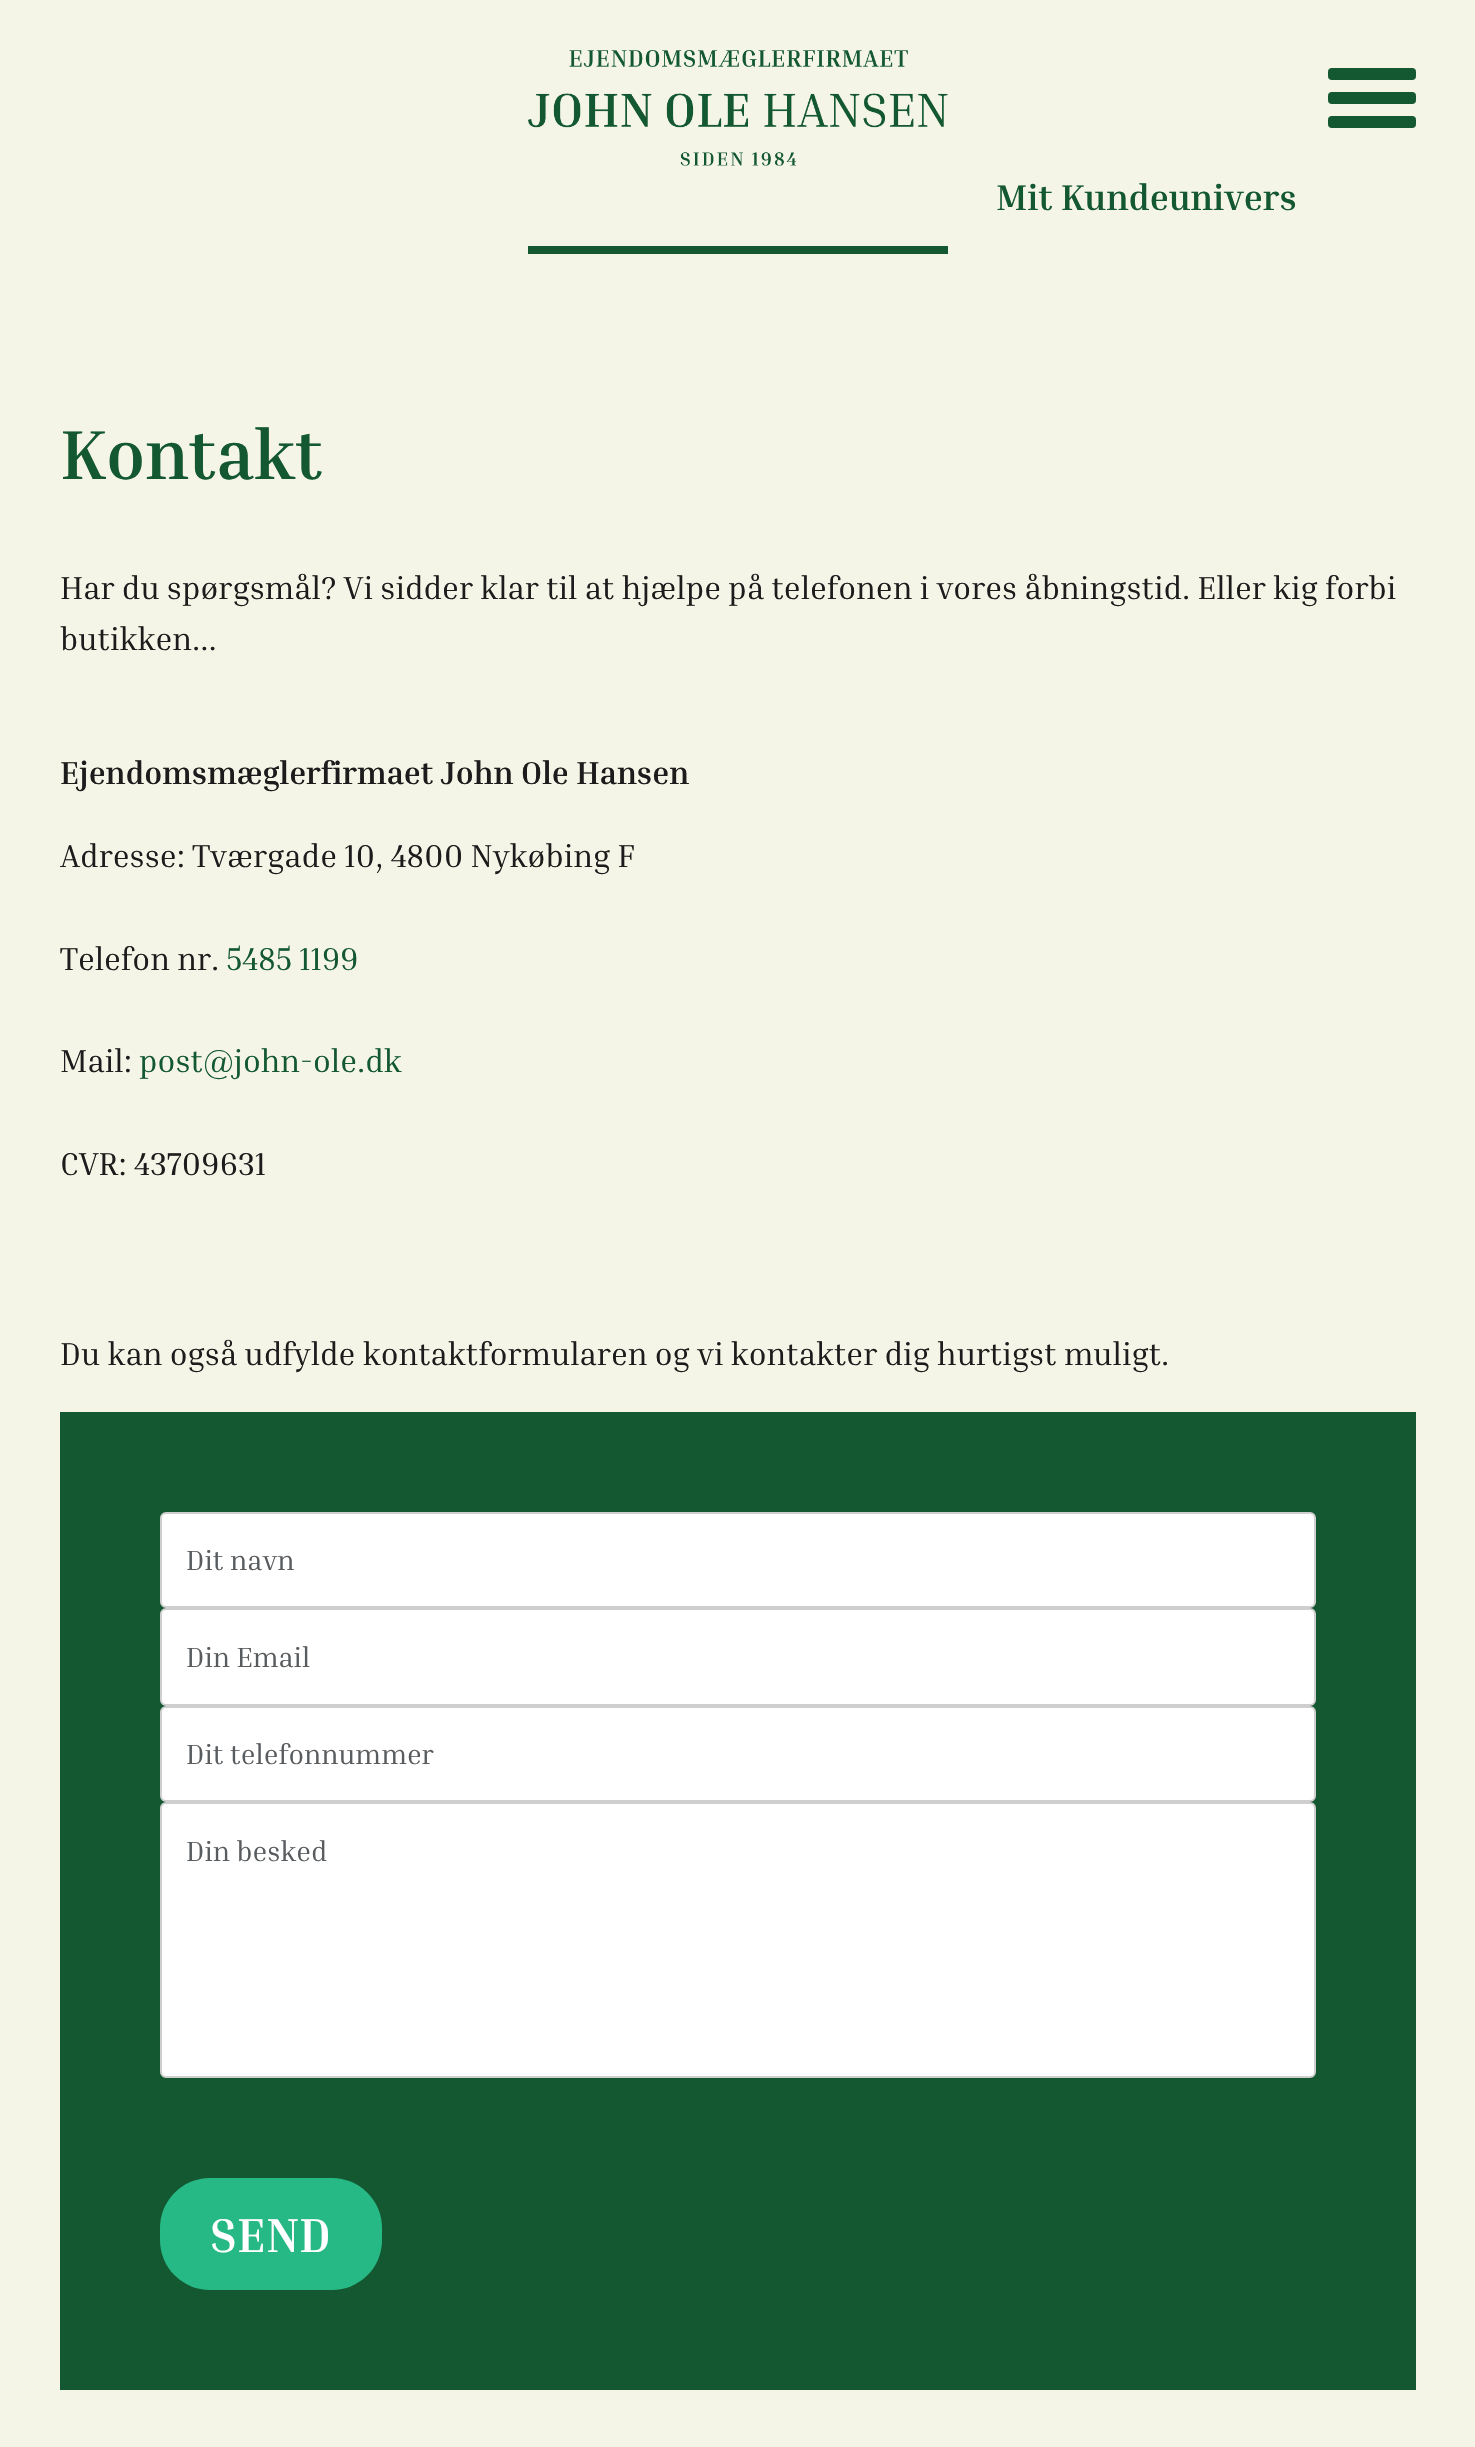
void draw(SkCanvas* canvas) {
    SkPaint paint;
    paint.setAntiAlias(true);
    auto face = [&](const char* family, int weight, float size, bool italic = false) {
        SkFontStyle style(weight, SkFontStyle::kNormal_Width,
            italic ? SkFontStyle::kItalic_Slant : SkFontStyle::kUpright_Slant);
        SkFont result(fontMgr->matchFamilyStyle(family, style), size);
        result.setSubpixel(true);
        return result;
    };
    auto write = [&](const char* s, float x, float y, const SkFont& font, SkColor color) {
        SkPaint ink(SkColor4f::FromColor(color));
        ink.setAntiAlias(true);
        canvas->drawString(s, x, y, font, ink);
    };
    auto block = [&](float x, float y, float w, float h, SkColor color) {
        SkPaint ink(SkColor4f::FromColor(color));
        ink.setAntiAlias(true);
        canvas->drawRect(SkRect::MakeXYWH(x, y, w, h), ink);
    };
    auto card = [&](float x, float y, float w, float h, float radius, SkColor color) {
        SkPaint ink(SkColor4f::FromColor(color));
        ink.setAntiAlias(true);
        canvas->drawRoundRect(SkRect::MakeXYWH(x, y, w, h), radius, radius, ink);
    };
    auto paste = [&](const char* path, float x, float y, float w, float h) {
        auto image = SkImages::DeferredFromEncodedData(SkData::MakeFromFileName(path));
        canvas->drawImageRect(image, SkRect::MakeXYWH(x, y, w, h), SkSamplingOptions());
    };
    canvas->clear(SkColorSetRGB(245, 245, 231));
    paste("pic1.png", 528, 50, 420, 116);
    block(528, 246, 420, 8, SkColorSetRGB(19, 88, 48));
    card(1328, 68, 88, 12, 4, SkColorSetRGB(19, 88, 48));
    card(1328, 92, 88, 12, 4, SkColorSetRGB(19, 88, 48));
    card(1328, 116, 88, 12, 4, SkColorSetRGB(19, 88, 48));
    auto kFont1 = face("Inria Serif", 700, 36);
    write("Mit Kundeunivers", 996, 210, kFont1, SkColorSetRGB(19, 88, 48));
    auto kFont2 = face("Inria Serif", 700, 70);
    write("Kontakt", 60, 479, kFont2, SkColorSetRGB(19, 88, 48));
    auto kFont3 = face("Inria Serif", 400, 32);
    write("Har du spørgsmål? Vi sidder klar til at hjælpe på telefonen i vores åbningstid. Eller kig forbi", 60, 599, kFont3, SkColorSetRGB(28, 28, 28));
    write("butikken...", 60, 650, kFont3, SkColorSetRGB(28, 28, 28));
    auto kFont4 = face("Inria Serif", 700, 32);
    write("Ejendomsmæglerfirmaet John Ole Hansen", 60, 784, kFont4, SkColorSetRGB(28, 28, 28));
    write("Adresse: Tværgade 10, 4800 Nykøbing F", 60, 867, kFont3, SkColorSetRGB(28, 28, 28));
    write("Telefon nr.", 60, 970, kFont3, SkColorSetRGB(28, 28, 28));
    write("5485 1199", 226, 970, kFont3, SkColorSetRGB(19, 88, 48));
    write("Mail:", 60, 1072, kFont3, SkColorSetRGB(28, 28, 28));
    write("post@john-ole.dk", 139, 1072, kFont3, SkColorSetRGB(19, 88, 48));
    write("CVR: 43709631", 60, 1175, kFont3, SkColorSetRGB(28, 28, 28));
    write("Du kan også udfylde kontaktformularen og vi kontakter dig hurtigst muligt.", 60, 1365, kFont3, SkColorSetRGB(28, 28, 28));
    block(60, 1412, 1356, 978, SkColorSetRGB(19, 88, 48));
    paint.setColor(SK_ColorWHITE);
    canvas->drawRoundRect(SkRect::MakeXYWH(161, 1513, 1154, 94), 5, 5, paint);
    paint.setStyle(SkPaint::kStroke_Style);
    paint.setStrokeWidth(2);
    paint.setColor(SkColorSetRGB(207, 207, 207));
    canvas->drawRoundRect(SkRect::MakeXYWH(161, 1513, 1154, 94), 5, 5, paint);
    auto kFont5 = face("Inria Serif", 400, 28);
    write("Dit navn", 186, 1570, kFont5, SkColorSetRGB(89, 92, 95));
    paint.setStyle(SkPaint::kFill_Style);
    paint.setColor(SK_ColorWHITE);
    canvas->drawRoundRect(SkRect::MakeXYWH(161, 1609, 1154, 96), 5, 5, paint);
    paint.setStyle(SkPaint::kStroke_Style);
    paint.setColor(SkColorSetRGB(207, 207, 207));
    canvas->drawRoundRect(SkRect::MakeXYWH(161, 1609, 1154, 96), 5, 5, paint);
    write("Din Email", 186, 1667, kFont5, SkColorSetRGB(89, 92, 95));
    paint.setStyle(SkPaint::kFill_Style);
    paint.setColor(SK_ColorWHITE);
    canvas->drawRoundRect(SkRect::MakeXYWH(161, 1707, 1154, 94), 5, 5, paint);
    paint.setStyle(SkPaint::kStroke_Style);
    paint.setColor(SkColorSetRGB(207, 207, 207));
    canvas->drawRoundRect(SkRect::MakeXYWH(161, 1707, 1154, 94), 5, 5, paint);
    write("Dit telefonnummer", 186, 1764, kFont5, SkColorSetRGB(89, 92, 95));
    paint.setStyle(SkPaint::kFill_Style);
    paint.setColor(SK_ColorWHITE);
    canvas->drawRoundRect(SkRect::MakeXYWH(161, 1803, 1154, 274), 5, 5, paint);
    paint.setStyle(SkPaint::kStroke_Style);
    paint.setColor(SkColorSetRGB(207, 207, 207));
    canvas->drawRoundRect(SkRect::MakeXYWH(161, 1803, 1154, 274), 5, 5, paint);
    write("Din besked", 186, 1861, kFont5, SkColorSetRGB(89, 92, 95));
    card(160, 2178, 222, 112, 50, SkColorSetRGB(38, 185, 134));
    auto kFont6 = face("Inria Serif", 700, 48);
    write("SEND", 210, 2252, kFont6, SK_ColorWHITE);
}
